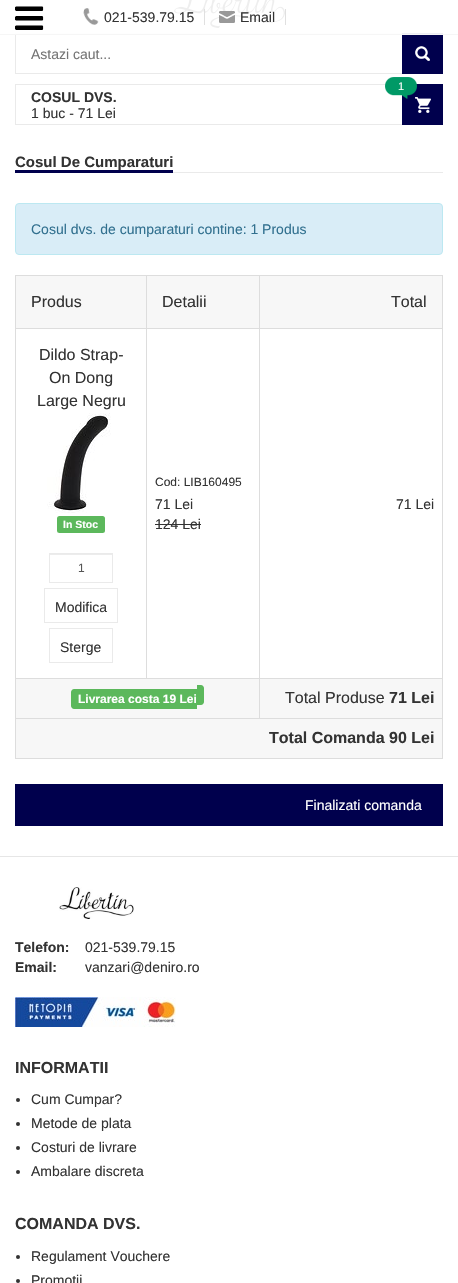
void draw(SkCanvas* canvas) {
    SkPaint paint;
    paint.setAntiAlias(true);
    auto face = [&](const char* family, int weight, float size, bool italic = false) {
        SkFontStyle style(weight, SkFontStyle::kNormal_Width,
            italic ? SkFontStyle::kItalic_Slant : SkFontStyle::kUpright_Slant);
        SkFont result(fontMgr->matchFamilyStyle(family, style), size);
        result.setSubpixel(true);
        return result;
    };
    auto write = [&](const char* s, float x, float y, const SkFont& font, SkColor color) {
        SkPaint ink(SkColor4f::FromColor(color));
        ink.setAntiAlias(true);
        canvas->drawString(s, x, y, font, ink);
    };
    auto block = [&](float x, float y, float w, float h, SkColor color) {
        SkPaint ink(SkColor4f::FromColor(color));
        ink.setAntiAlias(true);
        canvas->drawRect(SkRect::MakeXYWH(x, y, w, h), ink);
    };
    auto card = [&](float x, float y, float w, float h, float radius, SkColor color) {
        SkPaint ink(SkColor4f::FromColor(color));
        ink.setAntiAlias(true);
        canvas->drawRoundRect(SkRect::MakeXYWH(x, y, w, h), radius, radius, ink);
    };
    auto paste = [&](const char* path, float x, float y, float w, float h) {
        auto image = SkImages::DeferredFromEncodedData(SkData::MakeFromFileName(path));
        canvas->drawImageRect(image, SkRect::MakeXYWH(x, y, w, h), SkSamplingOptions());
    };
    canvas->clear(SK_ColorWHITE);
    paste("pic4.png", 174, 0, 111, 28);
    paint.setStyle(SkPaint::kStroke_Style);
    paint.setStrokeWidth(1);
    paint.setColor(SkColorSetRGB(234, 234, 234));
    canvas->drawRect(SkRect::MakeXYWH(15.5f, 33.5f, 427, 40), paint);
    block(402, 33, 41, 41, SkColorSetRGB(0, 0, 77));
    block(15, 0, 428, 34, SkColorSetARGB(237, 255, 255, 255));
    block(0, 34, 458, 1, SkColorSetRGB(246, 246, 246));
    paste("pic1.png", 15, 6, 29, 24);
    block(204, 9, 1, 16, SkColorSetRGB(224, 224, 224));
    paste("pic2.png", 83, 8, 16, 17);
    auto kFont1 = face("Liberation Sans", 400, 14);
    write("021-539.79.15", 104, 22, kFont1, SkColorSetRGB(51, 51, 51));
    block(285, 9, 1, 16, SkColorSetRGB(224, 224, 224));
    paste("pic3.png", 219, 11, 16, 12);
    write("Email", 240, 22, kFont1, SkColorSetRGB(51, 51, 51));
    write("Astazi caut...", 31, 59, kFont1, SkColorSetRGB(117, 117, 117));
    paste("pic5.png", 415, 46, 15, 15);
    canvas->drawRect(SkRect::MakeXYWH(15.5f, 84.5f, 427, 40), paint);
    auto kFont2 = face("Liberation Sans", 700, 14);
    write("COSUL DVS.", 31, 102, kFont2, SkColorSetRGB(51, 51, 51));
    block(402, 84, 41, 41, SkColorSetRGB(0, 0, 77));
    paste("pic7.png", 415, 97, 16, 16);
    paste("pic6.png", 385, 77, 32, 22);
    auto kFont3 = face("Liberation Sans", 400, 11);
    write("1", 398, 90, kFont3, SK_ColorWHITE);
    write("1 buc - 71 Lei", 31, 118, kFont1, SkColorSetRGB(51, 51, 51));
    block(173, 172, 270, 1, SkColorSetRGB(234, 234, 234));
    block(15, 170, 158, 3, SkColorSetRGB(0, 0, 77));
    auto kFont4 = face("Liberation Sans", 700, 15);
    write("Cosul De Cumparaturi", 15, 167, kFont4, SkColorSetRGB(51, 51, 51));
    paint.setStyle(SkPaint::kFill_Style);
    paint.setColor(SkColorSetRGB(217, 237, 247));
    canvas->drawRoundRect(SkRect::MakeXYWH(15.5f, 203.5f, 427, 51), 3.5f, 3.5f, paint);
    paint.setStyle(SkPaint::kStroke_Style);
    paint.setColor(SkColorSetRGB(188, 232, 241));
    canvas->drawRoundRect(SkRect::MakeXYWH(15.5f, 203.5f, 427, 51), 3.5f, 3.5f, paint);
    write("Cosul dvs. de cumparaturi contine: 1 Produs", 31, 234, kFont1, SkColorSetRGB(49, 112, 143));
    block(15, 275, 428, 1, SkColorSetRGB(221, 221, 221));
    block(442, 275, 1, 484, SkColorSetRGB(221, 221, 221));
    block(15, 758, 428, 1, SkColorSetRGB(221, 221, 221));
    block(15, 275, 1, 484, SkColorSetRGB(221, 221, 221));
    block(16, 276, 426, 52, SkColorSetRGB(247, 247, 247));
    auto kFont5 = face("Liberation Sans", 400, 16);
    write("Produs", 31, 307, kFont5, SkColorSetRGB(51, 51, 51));
    block(259, 328, 184, 1, SkColorSetRGB(221, 221, 221));
    block(259, 678, 184, 1, SkColorSetRGB(221, 221, 221));
    block(16, 679, 426, 79, SkColorSetRGB(247, 247, 247));
    block(15, 718, 428, 1, SkColorSetRGB(221, 221, 221));
    block(259, 678, 1, 41, SkColorSetRGB(221, 221, 221));
    block(15, 678, 245, 1, SkColorSetRGB(221, 221, 221));
    block(259, 328, 1, 351, SkColorSetRGB(221, 221, 221));
    block(146, 328, 114, 1, SkColorSetRGB(221, 221, 221));
    block(146, 328, 1, 351, SkColorSetRGB(221, 221, 221));
    block(15, 328, 132, 1, SkColorSetRGB(221, 221, 221));
    block(146, 275, 1, 54, SkColorSetRGB(221, 221, 221));
    write("Detalii", 162, 307, kFont5, SkColorSetRGB(51, 51, 51));
    block(259, 275, 1, 54, SkColorSetRGB(221, 221, 221));
    write("Total", 391, 307, kFont5, SkColorSetRGB(51, 51, 51));
    write("Dildo Strap-", 39, 360, kFont5, SkColorSetRGB(51, 51, 51));
    write("On Dong", 49, 383, kFont5, SkColorSetRGB(51, 51, 51));
    write("Large Negru", 37, 406, kFont5, SkColorSetRGB(51, 51, 51));
    paste("pic8.png", 47, 413, 64, 100);
    card(57, 516, 48, 17, 2.5f, SkColorSetRGB(92, 184, 92));
    auto kFont6 = face("Liberation Sans", 700, 10.5f);
    write("In Stoc", 63, 528, kFont6, SK_ColorWHITE);
    block(50, 554, 62, 1, SkColorSetRGB(236, 236, 236));
    paint.setColor(SkColorSetRGB(234, 234, 234));
    canvas->drawRect(SkRect::MakeXYWH(49.5f, 553.5f, 63, 29), paint);
    auto kFont7 = face("Liberation Sans", 400, 12);
    write("1", 78, 572, kFont7, SkColorSetRGB(85, 85, 85));
    canvas->drawRect(SkRect::MakeXYWH(44.5f, 588.5f, 73, 34), paint);
    write("Modifica", 55, 612, kFont1, SkColorSetRGB(51, 51, 51));
    canvas->drawRect(SkRect::MakeXYWH(49.5f, 628.5f, 63, 34), paint);
    write("Sterge", 60, 652, kFont1, SkColorSetRGB(51, 51, 51));
    write("Cod: LIB160495", 155, 486, kFont7, SkColorSetRGB(51, 51, 51));
    write("71 Lei", 155, 509, kFont1, SkColorSetRGB(51, 51, 51));
    write("124 Lei", 155, 529, kFont1, SkColorSetRGB(51, 51, 51));
    block(155, 524, 46, 1, SkColorSetRGB(51, 51, 51));
    write("71 Lei", 396, 509, kFont1, SkColorSetRGB(51, 51, 51));
    paint.setStyle(SkPaint::kFill_Style);
    paint.setColor(SkColorSetRGB(92, 184, 92));
    canvas->drawPath(SkPathBuilder().moveTo(74, 689).lineTo(197, 689).lineTo(197, 709).lineTo(74, 709).cubicTo(72.5f, 709, 71, 707.5f, 71, 706).lineTo(71, 692).cubicTo(71, 690.5f, 72.5f, 689, 74, 689).close().detach(), paint);
    auto kFont8 = face("Liberation Sans", 700, 12);
    write("Livrarea costa 19 Lei", 78, 703, kFont8, SK_ColorWHITE);
    canvas->drawPath(SkPathBuilder().moveTo(197, 685).lineTo(201, 685).cubicTo(202.5f, 685, 204, 686.5f, 204, 688).lineTo(204, 702).cubicTo(204, 703.5f, 202.5f, 705, 201, 705).lineTo(197, 705).close().detach(), paint);
    write("Total Produse", 285, 703, kFont5, SkColorSetRGB(51, 51, 51));
    auto kFont9 = face("Liberation Sans", 700, 16);
    write("71 Lei", 389, 703, kFont9, SkColorSetRGB(51, 51, 51));
    write("Total Comanda 90 Lei", 269, 743, kFont9, SkColorSetRGB(51, 51, 51));
    block(15, 784, 428, 42, SkColorSetRGB(0, 0, 77));
    write("Finalizati comanda", 305, 810, kFont1, SK_ColorWHITE);
    block(0, 856, 458, 1, SkColorSetRGB(230, 230, 230));
    paste("pic9.png", 59, 887, 75, 32);
    write("Telefon:", 15, 952, kFont2, SkColorSetRGB(51, 51, 51));
    write("021-539.79.15", 85, 952, kFont1, SkColorSetRGB(51, 51, 51));
    write("Email:", 15, 972, kFont2, SkColorSetRGB(51, 51, 51));
    write("vanzari@deniro.ro", 85, 972, kFont1, SkColorSetRGB(51, 51, 51));
    paste("pic10.png", 15, 997, 161, 30);
    write("INFORMATII", 15, 1073, kFont9, SkColorSetRGB(51, 51, 51));
    paint.setColor(SkColorSetRGB(51, 51, 51));
    canvas->drawCircle(18, 1100, 2, paint);
    write("Cum Cumpar?", 31, 1104, kFont1, SkColorSetRGB(51, 51, 51));
    canvas->drawCircle(18, 1124, 2, paint);
    write("Metode de plata", 31, 1128, kFont1, SkColorSetRGB(51, 51, 51));
    canvas->drawCircle(18, 1148, 2, paint);
    write("Costuri de livrare", 31, 1152, kFont1, SkColorSetRGB(51, 51, 51));
    canvas->drawCircle(18, 1172, 2, paint);
    write("Ambalare discreta", 31, 1176, kFont1, SkColorSetRGB(51, 51, 51));
    write("COMANDA DVS.", 15, 1229, kFont9, SkColorSetRGB(51, 51, 51));
    canvas->drawCircle(18, 1257, 2, paint);
    write("Regulament Vouchere", 31, 1261, kFont1, SkColorSetRGB(51, 51, 51));
    canvas->drawCircle(18, 1281, 2, paint);
    write("Promotii", 31, 1285, kFont1, SkColorSetRGB(51, 51, 51));
}
